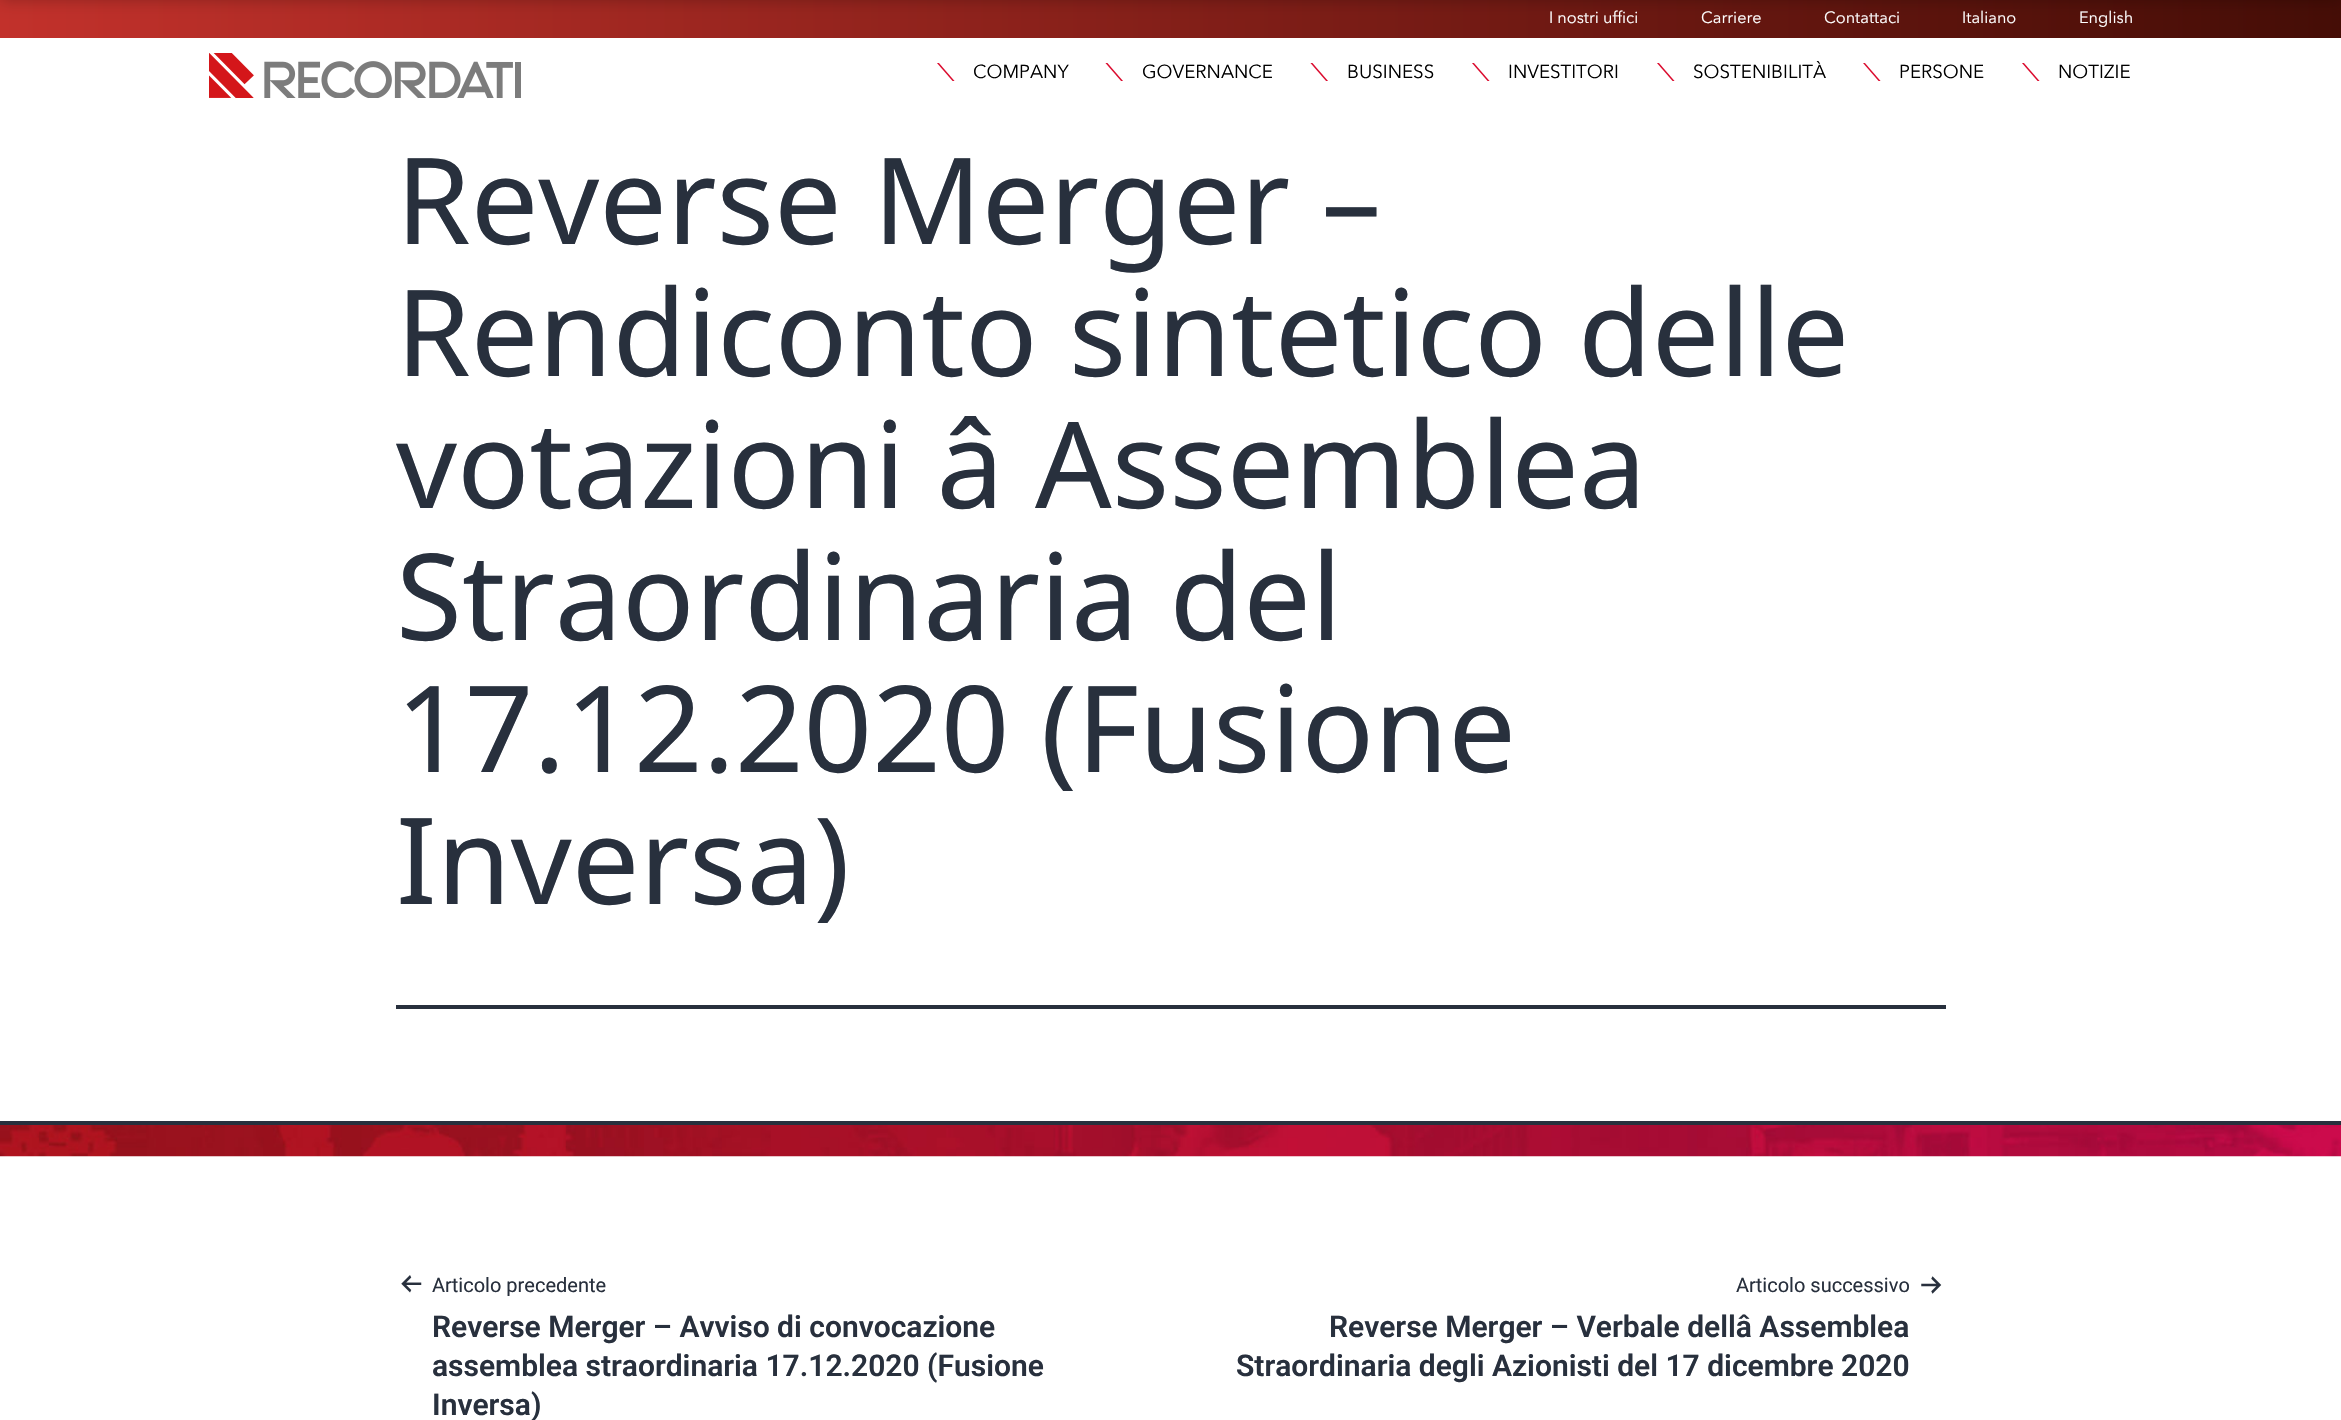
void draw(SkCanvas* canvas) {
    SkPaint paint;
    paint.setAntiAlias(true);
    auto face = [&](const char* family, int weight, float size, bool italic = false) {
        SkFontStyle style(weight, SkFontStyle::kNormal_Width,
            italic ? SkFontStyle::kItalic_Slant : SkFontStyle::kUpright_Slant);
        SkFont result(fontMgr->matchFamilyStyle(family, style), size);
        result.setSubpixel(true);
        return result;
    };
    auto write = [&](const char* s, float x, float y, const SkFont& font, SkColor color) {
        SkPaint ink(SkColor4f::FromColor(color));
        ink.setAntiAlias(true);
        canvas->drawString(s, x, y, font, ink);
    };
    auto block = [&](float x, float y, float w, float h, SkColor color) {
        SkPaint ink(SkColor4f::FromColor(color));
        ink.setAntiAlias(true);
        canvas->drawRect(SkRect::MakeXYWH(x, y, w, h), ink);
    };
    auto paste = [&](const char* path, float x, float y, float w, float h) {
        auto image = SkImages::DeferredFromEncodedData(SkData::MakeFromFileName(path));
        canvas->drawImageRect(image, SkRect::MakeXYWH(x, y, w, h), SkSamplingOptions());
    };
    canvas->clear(SK_ColorWHITE);
    {
        const SkColor colors[] = {SkColorSetRGB(194, 49, 43), SkColorSetRGB(69, 13, 6)};
        const float stops[] = {0, 1};
        const SkPoint ends[] = {{0, 19}, {2341, 19}};
        paint.setShader(SkGradientShader::MakeLinear(ends, colors, stops, 2, SkTileMode::kClamp));
        paint.setAlpha(255);
    }
    canvas->drawRect(SkRect::MakeXYWH(0, 0, 2341, 38), paint);
    paint.setShader(nullptr);
    paint.setColor(SkColorSetARGB(64, 0, 0, 0));
    paint.setMaskFilter(SkMaskFilter::MakeBlur(kNormal_SkBlurStyle, 8));
    canvas->drawRect(SkRect::MakeXYWH(0, -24, 2341, 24), paint);
    paint.setMaskFilter(nullptr);
    auto kFont1 = face("Avenir Next", 400, 16.25f);
    write("I nostri uffici", 1549, 23, kFont1, SK_ColorWHITE);
    write("Carriere", 1701, 23, kFont1, SK_ColorWHITE);
    write("Contattaci", 1824, 23, kFont1, SK_ColorWHITE);
    write("Italiano", 1962, 23, kFont1, SK_ColorWHITE);
    write("English", 2079, 23, kFont1, SK_ColorWHITE);
    paste("pic1.png", 209, 53, 312, 45);
    canvas->save();
    canvas->clipRect(SkRect::MakeXYWH(936, 63, 19, 18));
    paint.setColor(SkColorSetRGB(219, 11, 46));
    canvas->drawPath(SkPathBuilder().moveTo(955, 81.5f).lineTo(953, 81.5f).lineTo(936.5f, 62.5f).lineTo(938.5f, 62.5f).close().detach(), paint);
    canvas->restore();
    auto kFont2 = face("Avenir Next", 400, 18.75f);
    write("COMPANY", 973, 78, kFont2, SK_ColorBLACK);
    canvas->save();
    canvas->clipRect(SkRect::MakeXYWH(1105, 63, 19, 18));
    canvas->drawPath(SkPathBuilder().moveTo(1123.5f, 81.5f).lineTo(1121.5f, 81.5f).lineTo(1105, 62.5f).lineTo(1107, 62.5f).close().detach(), paint);
    canvas->restore();
    write("GOVERNANCE", 1142, 78, kFont2, SK_ColorBLACK);
    canvas->save();
    canvas->clipRect(SkRect::MakeXYWH(1310, 63, 19, 18));
    canvas->drawPath(SkPathBuilder().moveTo(1328.5f, 81.5f).lineTo(1326.5f, 81.5f).lineTo(1310, 62.5f).lineTo(1312, 62.5f).close().detach(), paint);
    canvas->restore();
    write("BUSINESS", 1347, 78, kFont2, SK_ColorBLACK);
    canvas->save();
    canvas->clipRect(SkRect::MakeXYWH(1471, 63, 19, 18));
    canvas->drawPath(SkPathBuilder().moveTo(1490, 81.5f).lineTo(1488, 81.5f).lineTo(1471.5f, 62.5f).lineTo(1473.5f, 62.5f).close().detach(), paint);
    canvas->restore();
    write("INVESTITORI", 1508, 78, kFont2, SK_ColorBLACK);
    canvas->save();
    canvas->clipRect(SkRect::MakeXYWH(1656, 63, 19, 18));
    canvas->drawPath(SkPathBuilder().moveTo(1675, 81.5f).lineTo(1673, 81.5f).lineTo(1656.5f, 62.5f).lineTo(1658.5f, 62.5f).close().detach(), paint);
    canvas->restore();
    write("SOSTENIBILITÀ", 1693, 78, kFont2, SK_ColorBLACK);
    canvas->save();
    canvas->clipRect(SkRect::MakeXYWH(1863, 63, 18, 18));
    canvas->drawPath(SkPathBuilder().moveTo(1881, 81.5f).lineTo(1879, 81.5f).lineTo(1862.5f, 62.5f).lineTo(1864.5f, 62.5f).close().detach(), paint);
    canvas->restore();
    write("PERSONE", 1899, 78, kFont2, SK_ColorBLACK);
    canvas->save();
    canvas->clipRect(SkRect::MakeXYWH(2021, 63, 19, 18));
    canvas->drawPath(SkPathBuilder().moveTo(2040, 81.5f).lineTo(2038, 81.5f).lineTo(2021.5f, 62.5f).lineTo(2023.5f, 62.5f).close().detach(), paint);
    canvas->restore();
    write("NOTIZIE", 2058, 78, kFont2, SK_ColorBLACK);
    block(396, 1005, 1550, 4, SkColorSetRGB(40, 48, 61));
    auto kFont3 = face("Noto Sans", 400, 120);
    write("Reverse Merger –", 396, 244, kFont3, SkColorSetRGB(40, 48, 61));
    write("Rendiconto sintetico delle", 396, 376, kFont3, SkColorSetRGB(40, 48, 61));
    write("votazioni â Assemblea", 396, 508, kFont3, SkColorSetRGB(40, 48, 61));
    write("Straordinaria del", 396, 640, kFont3, SkColorSetRGB(40, 48, 61));
    write("17.12.2020 (Fusione", 396, 772, kFont3, SkColorSetRGB(40, 48, 61));
    write("Inversa)", 396, 904, kFont3, SkColorSetRGB(40, 48, 61));
    paste("pic2.png", 0, 1125, 2341, 32);
    block(0, 1121, 2341, 4, SkColorSetRGB(40, 48, 61));
    paste("pic3.png", 401, 1275, 21, 18);
    auto kFont4 = face("Roboto", 400, 20);
    write("Articolo precedente", 432, 1292, kFont4, SkColorSetRGB(40, 48, 61));
    auto kFont5 = face("Roboto", 600, 30);
    write("Reverse Merger – Avviso di convocazione", 432, 1337, kFont5, SkColorSetRGB(40, 48, 61));
    write("assemblea straordinaria 17.12.2020 (Fusione", 432, 1376, kFont5, SkColorSetRGB(40, 48, 61));
    write("Inversa)", 432, 1415, kFont5, SkColorSetRGB(40, 48, 61));
    write("Articolo successivo", 1736, 1292, kFont4, SkColorSetRGB(40, 48, 61));
    paste("pic4.png", 1921, 1276, 21, 18);
    write("Reverse Merger – Verbale dellâ Assemblea", 1329, 1337, kFont5, SkColorSetRGB(40, 48, 61));
    write("Straordinaria degli Azionisti del 17 dicembre 2020", 1236, 1376, kFont5, SkColorSetRGB(40, 48, 61));
}
